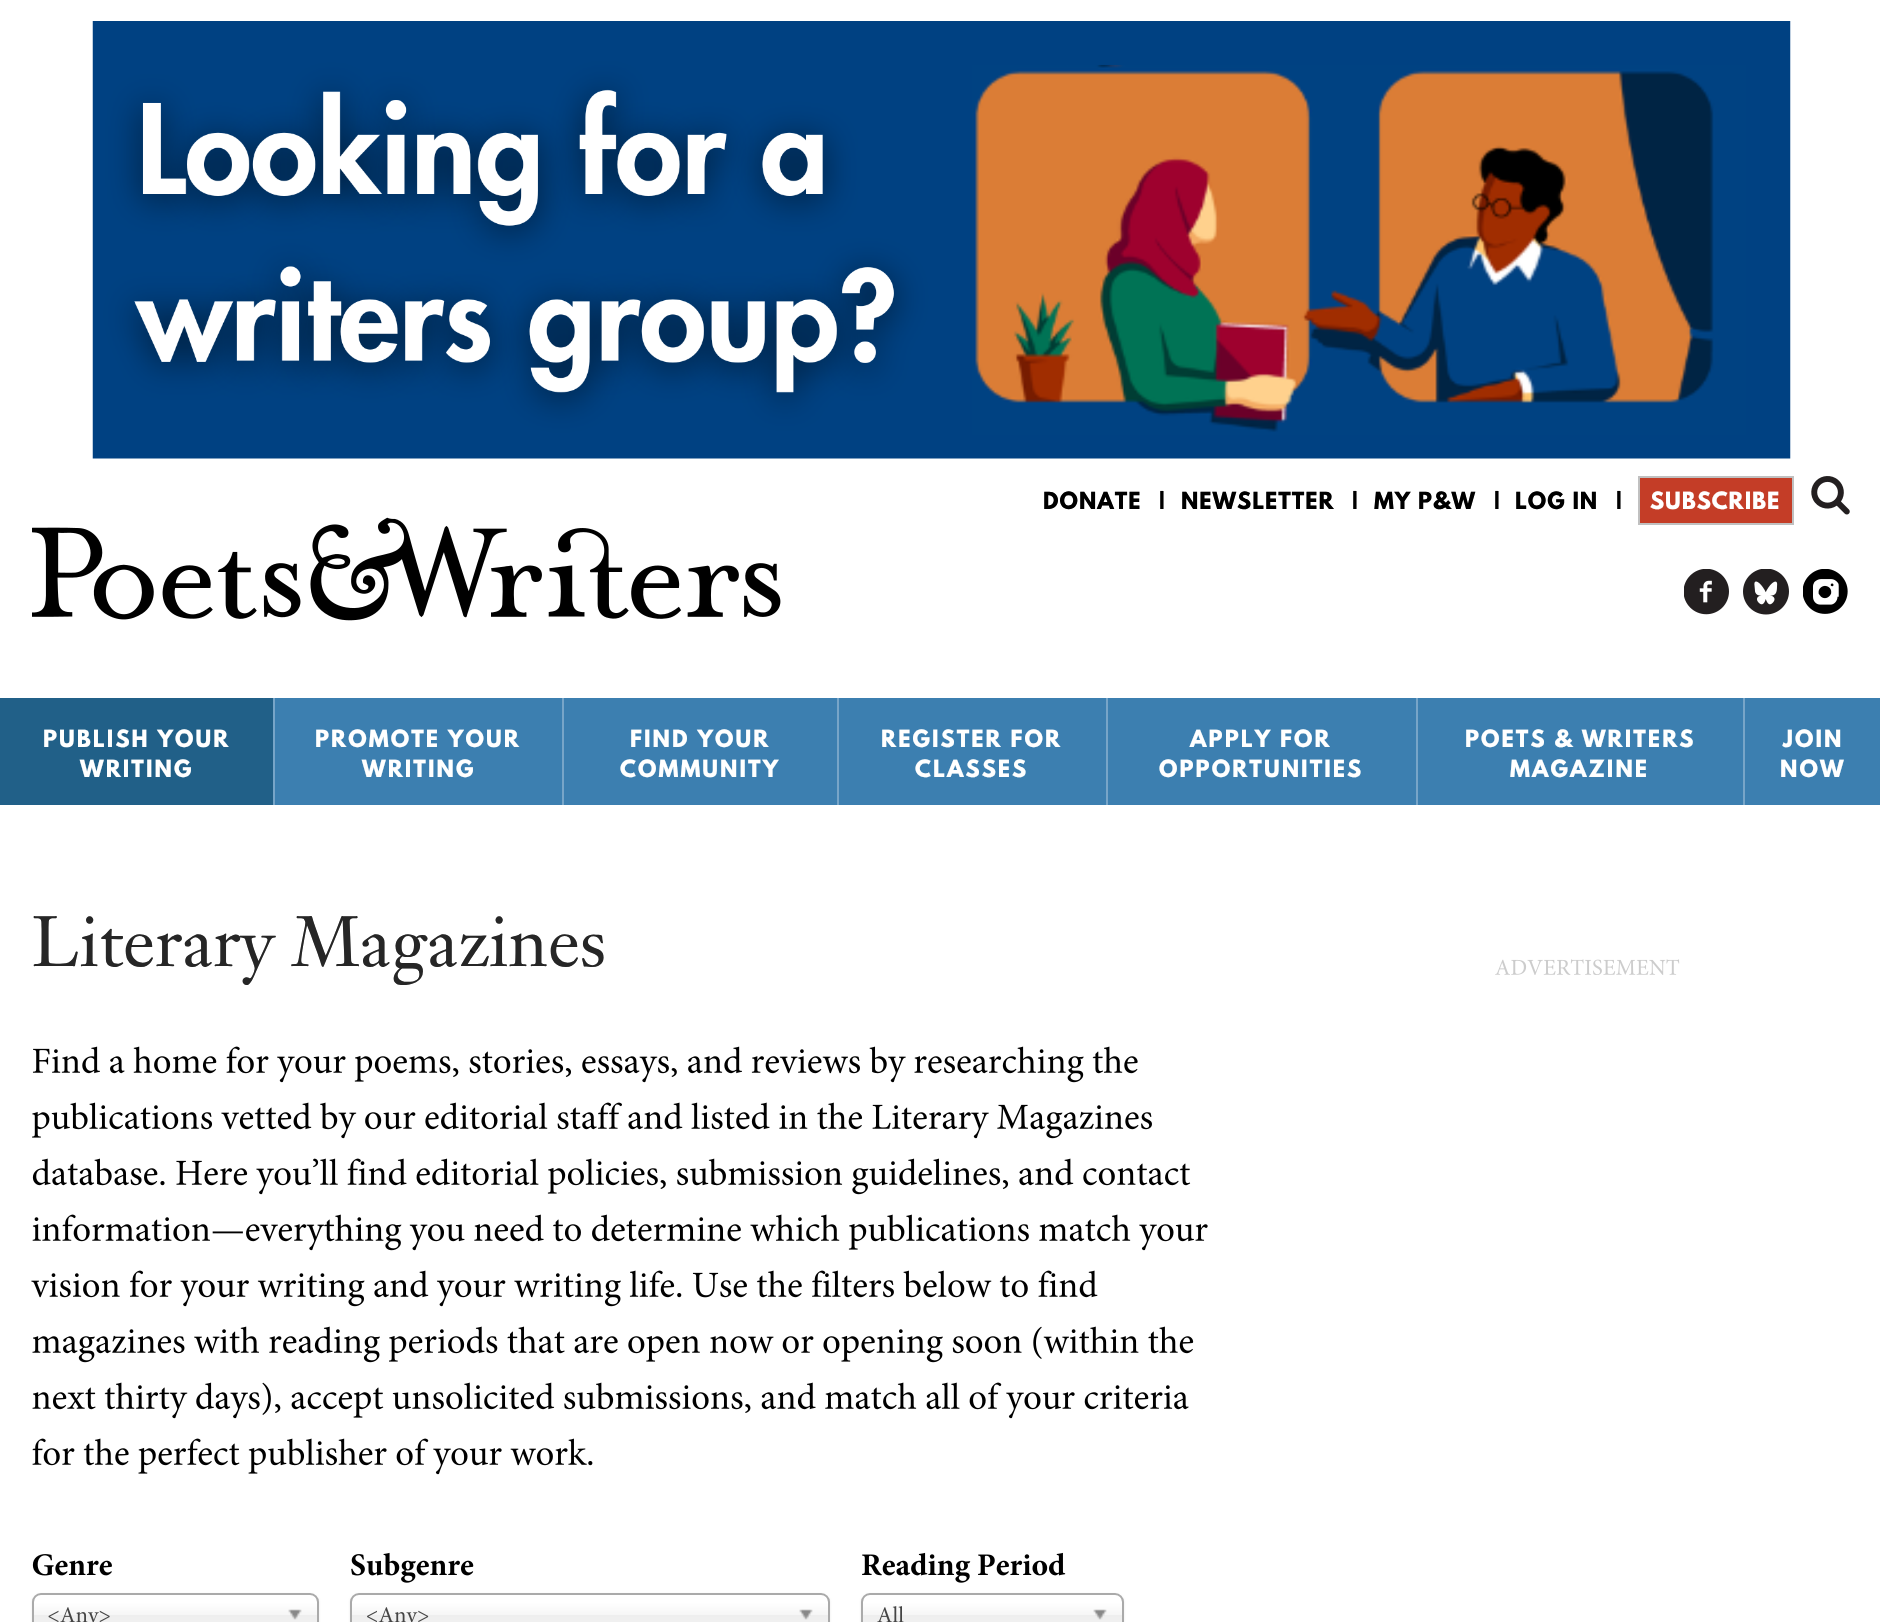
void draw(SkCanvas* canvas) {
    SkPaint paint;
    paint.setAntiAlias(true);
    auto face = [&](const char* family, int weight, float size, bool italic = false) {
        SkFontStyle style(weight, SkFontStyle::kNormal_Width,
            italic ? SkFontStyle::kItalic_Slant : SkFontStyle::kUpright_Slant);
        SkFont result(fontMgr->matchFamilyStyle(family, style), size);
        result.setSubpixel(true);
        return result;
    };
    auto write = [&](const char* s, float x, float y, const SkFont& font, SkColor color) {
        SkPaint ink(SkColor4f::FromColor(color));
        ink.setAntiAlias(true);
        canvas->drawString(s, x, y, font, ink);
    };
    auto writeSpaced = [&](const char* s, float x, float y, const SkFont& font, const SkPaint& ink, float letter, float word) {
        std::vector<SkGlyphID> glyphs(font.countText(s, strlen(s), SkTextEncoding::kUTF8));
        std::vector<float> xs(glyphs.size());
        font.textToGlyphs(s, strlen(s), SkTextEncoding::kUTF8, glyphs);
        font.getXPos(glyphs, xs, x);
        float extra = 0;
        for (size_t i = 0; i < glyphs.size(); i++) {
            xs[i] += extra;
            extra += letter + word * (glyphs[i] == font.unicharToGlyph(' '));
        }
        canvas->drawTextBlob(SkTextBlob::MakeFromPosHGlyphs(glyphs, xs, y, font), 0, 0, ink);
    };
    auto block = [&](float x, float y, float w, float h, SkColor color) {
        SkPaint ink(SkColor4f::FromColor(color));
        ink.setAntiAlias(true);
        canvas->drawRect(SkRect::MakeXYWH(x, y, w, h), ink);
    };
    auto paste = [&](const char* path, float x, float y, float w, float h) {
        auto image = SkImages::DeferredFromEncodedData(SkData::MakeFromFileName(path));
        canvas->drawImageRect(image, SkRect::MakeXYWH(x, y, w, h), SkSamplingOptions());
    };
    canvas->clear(SK_ColorWHITE);
    paste("pic1.png", 92, 21, 1699, 438);
    auto kFont1 = face("League Spartan", 700, 21);
    paint.setColor(SK_ColorBLACK);
    writeSpaced("DONATE", 1043, 509, kFont1, paint, 1, 0);
    write("|", 1159, 509, kFont1, SK_ColorBLACK);
    writeSpaced("NEWSLETTER", 1181, 509, kFont1, paint, 1, 0);
    write("|", 1352, 509, kFont1, SK_ColorBLACK);
    writeSpaced("MY P&W", 1374, 509, kFont1, paint, 1, 0);
    write("|", 1494, 509, kFont1, SK_ColorBLACK);
    writeSpaced("LOG IN", 1515, 509, kFont1, paint, 1, 0);
    write("|", 1616, 509, kFont1, SK_ColorBLACK);
    paint.setColor(SkColorSetRGB(196, 61, 39));
    canvas->drawRect(SkRect::MakeXYWH(1639, 477, 154, 47), paint);
    paint.setStyle(SkPaint::kStroke_Style);
    paint.setStrokeWidth(2);
    paint.setColor(SkColorSetRGB(192, 192, 192));
    canvas->drawRect(SkRect::MakeXYWH(1639, 477, 154, 47), paint);
    paint.setStyle(SkPaint::kFill_Style);
    paint.setColor(SK_ColorWHITE);
    writeSpaced("SUBSCRIBE", 1650, 509, kFont1, paint, 1, 0);
    paste("pic2.png", 1811, 476, 39, 39);
    paste("pic3.png", 1684, 569, 45, 46);
    paste("pic4.png", 1743, 569, 46, 46);
    paste("pic5.png", 1803, 569, 45, 45);
    block(275, 698, 1605, 107, SkColorSetRGB(60, 127, 176));
    block(0, 698, 273, 107, SkColorSetRGB(33, 96, 136));
    writeSpaced("PUBLISH YOUR", 43, 747, kFont1, paint, 2.1f, 0);
    writeSpaced("WRITING", 80, 777, kFont1, paint, 2.1f, 0);
    block(273, 698, 2, 107, SkColorSetRGB(119, 165, 200));
    writeSpaced("PROMOTE YOUR", 315, 747, kFont1, paint, 2.1f, 0);
    writeSpaced("WRITING", 362, 777, kFont1, paint, 2.1f, 0);
    block(562, 698, 2, 107, SkColorSetRGB(119, 165, 200));
    writeSpaced("FIND YOUR", 630, 747, kFont1, paint, 2.1f, 0);
    writeSpaced("COMMUNITY", 620, 777, kFont1, paint, 2.1f, 0);
    block(837, 698, 2, 107, SkColorSetRGB(119, 165, 200));
    writeSpaced("REGISTER FOR", 881, 747, kFont1, paint, 2.1f, 0);
    writeSpaced("CLASSES", 915, 777, kFont1, paint, 2.1f, 0);
    block(1106, 698, 2, 107, SkColorSetRGB(119, 165, 200));
    writeSpaced("APPLY FOR", 1190, 747, kFont1, paint, 2.1f, 0);
    writeSpaced("OPPORTUNITIES", 1159, 777, kFont1, paint, 2.1f, 0);
    block(1416, 698, 2, 107, SkColorSetRGB(119, 165, 200));
    writeSpaced("POETS & WRITERS", 1465, 747, kFont1, paint, 2.1f, 0);
    writeSpaced("MAGAZINE", 1510, 777, kFont1, paint, 2.1f, 0);
    block(1743, 698, 2, 107, SkColorSetRGB(119, 165, 200));
    writeSpaced("JOIN", 1783, 747, kFont1, paint, 2.1f, 0);
    writeSpaced("NOW", 1780, 777, kFont1, paint, 2.1f, 0);
    paste("pic6.png", 32, 517, 749, 104);
    auto kFont2 = face("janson", 400, 70);
    write("Literary Magazines", 32, 966, kFont2, SkColorSetRGB(38, 38, 38));
    paste("pic7.png", 32, 1046, 1106, 37);
    paste("pic8.png", 32, 1102, 1120, 37);
    paste("pic9.png", 32, 1158, 1159, 37);
    paste("pic10.png", 32, 1214, 1176, 37);
    paste("pic11.png", 31, 1270, 1067, 37);
    paste("pic12.png", 32, 1326, 1162, 37);
    paste("pic13.png", 32, 1382, 1157, 37);
    paste("pic14.png", 32, 1438, 561, 37);
    paste("pic15.png", 32, 1554, 80, 22);
    paint.setColor(SkColorSetARGB(26, 0, 0, 0));
    paint.setMaskFilter(SkMaskFilter::MakeBlur(kNormal_SkBlurStyle, 1));
    canvas->drawRoundRect(SkRect::MakeXYWH(32, 1594, 287, 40), 9, 9, paint);
    paint.setMaskFilter(nullptr);
    {
        const SkColor colors[] = {SK_ColorWHITE, SkColorSetRGB(246, 246, 246), SkColorSetRGB(238, 238, 238), SkColorSetRGB(244, 244, 244)};
        const float stops[] = {0.2f, 0.5f, 0.52f, 1};
        const SkPoint ends[] = {{175, 1594}, {175, 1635}};
        paint.setShader(SkGradientShader::MakeLinear(ends, colors, stops, 4, SkTileMode::kClamp));
        paint.setAlpha(255);
    }
    canvas->drawRoundRect(SkRect::MakeXYWH(33, 1594, 284, 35), 7, 7, paint);
    paint.setStyle(SkPaint::kStroke_Style);
    paint.setShader(nullptr);
    paint.setColor(SkColorSetRGB(170, 170, 170));
    canvas->drawRoundRect(SkRect::MakeXYWH(33, 1594, 285, 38), 8, 8, paint);
    paste("pic16.png", 48, 1607, 62, 15);
    paste("pic17.png", 288, 1609, 14, 11);
    paste("pic18.png", 351, 1552, 123, 31);
    paint.setStyle(SkPaint::kFill_Style);
    paint.setColor(SkColorSetARGB(26, 0, 0, 0));
    paint.setMaskFilter(SkMaskFilter::MakeBlur(kNormal_SkBlurStyle, 1));
    canvas->drawRoundRect(SkRect::MakeXYWH(350, 1594, 480, 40), 9, 9, paint);
    paint.setMaskFilter(nullptr);
    {
        const SkColor colors[] = {SK_ColorWHITE, SkColorSetRGB(246, 246, 246), SkColorSetRGB(238, 238, 238), SkColorSetRGB(244, 244, 244)};
        const float stops[] = {0.2f, 0.5f, 0.52f, 1};
        const SkPoint ends[] = {{590, 1594}, {590, 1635}};
        paint.setShader(SkGradientShader::MakeLinear(ends, colors, stops, 4, SkTileMode::kClamp));
        paint.setAlpha(255);
    }
    canvas->drawRoundRect(SkRect::MakeXYWH(352, 1594, 476, 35), 7, 7, paint);
    paint.setStyle(SkPaint::kStroke_Style);
    paint.setShader(nullptr);
    paint.setColor(SkColorSetRGB(170, 170, 170));
    canvas->drawRoundRect(SkRect::MakeXYWH(351, 1594, 478, 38), 8, 8, paint);
    paste("pic19.png", 367, 1607, 62, 15);
    paste("pic20.png", 799, 1609, 14, 11);
    paste("pic21.png", 862, 1552, 204, 31);
    paint.setStyle(SkPaint::kFill_Style);
    paint.setColor(SkColorSetARGB(26, 0, 0, 0));
    paint.setMaskFilter(SkMaskFilter::MakeBlur(kNormal_SkBlurStyle, 1));
    canvas->drawRoundRect(SkRect::MakeXYWH(861, 1594, 263, 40), 9, 9, paint);
    paint.setMaskFilter(nullptr);
    {
        const SkColor colors[] = {SK_ColorWHITE, SkColorSetRGB(246, 246, 246), SkColorSetRGB(238, 238, 238), SkColorSetRGB(244, 244, 244)};
        const float stops[] = {0.2f, 0.5f, 0.52f, 1};
        const SkPoint ends[] = {{992, 1594}, {992, 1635}};
        paint.setShader(SkGradientShader::MakeLinear(ends, colors, stops, 4, SkTileMode::kClamp));
        paint.setAlpha(255);
    }
    canvas->drawRoundRect(SkRect::MakeXYWH(863, 1594, 259, 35), 7, 7, paint);
    paint.setStyle(SkPaint::kStroke_Style);
    paint.setShader(nullptr);
    paint.setColor(SkColorSetRGB(170, 170, 170));
    canvas->drawRoundRect(SkRect::MakeXYWH(862, 1594, 261, 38), 8, 8, paint);
    paste("pic22.png", 877, 1606, 27, 16);
    paste("pic17.png", 1093, 1609, 14, 11);
    paste("pic23.png", 1495, 959, 185, 16);
}
